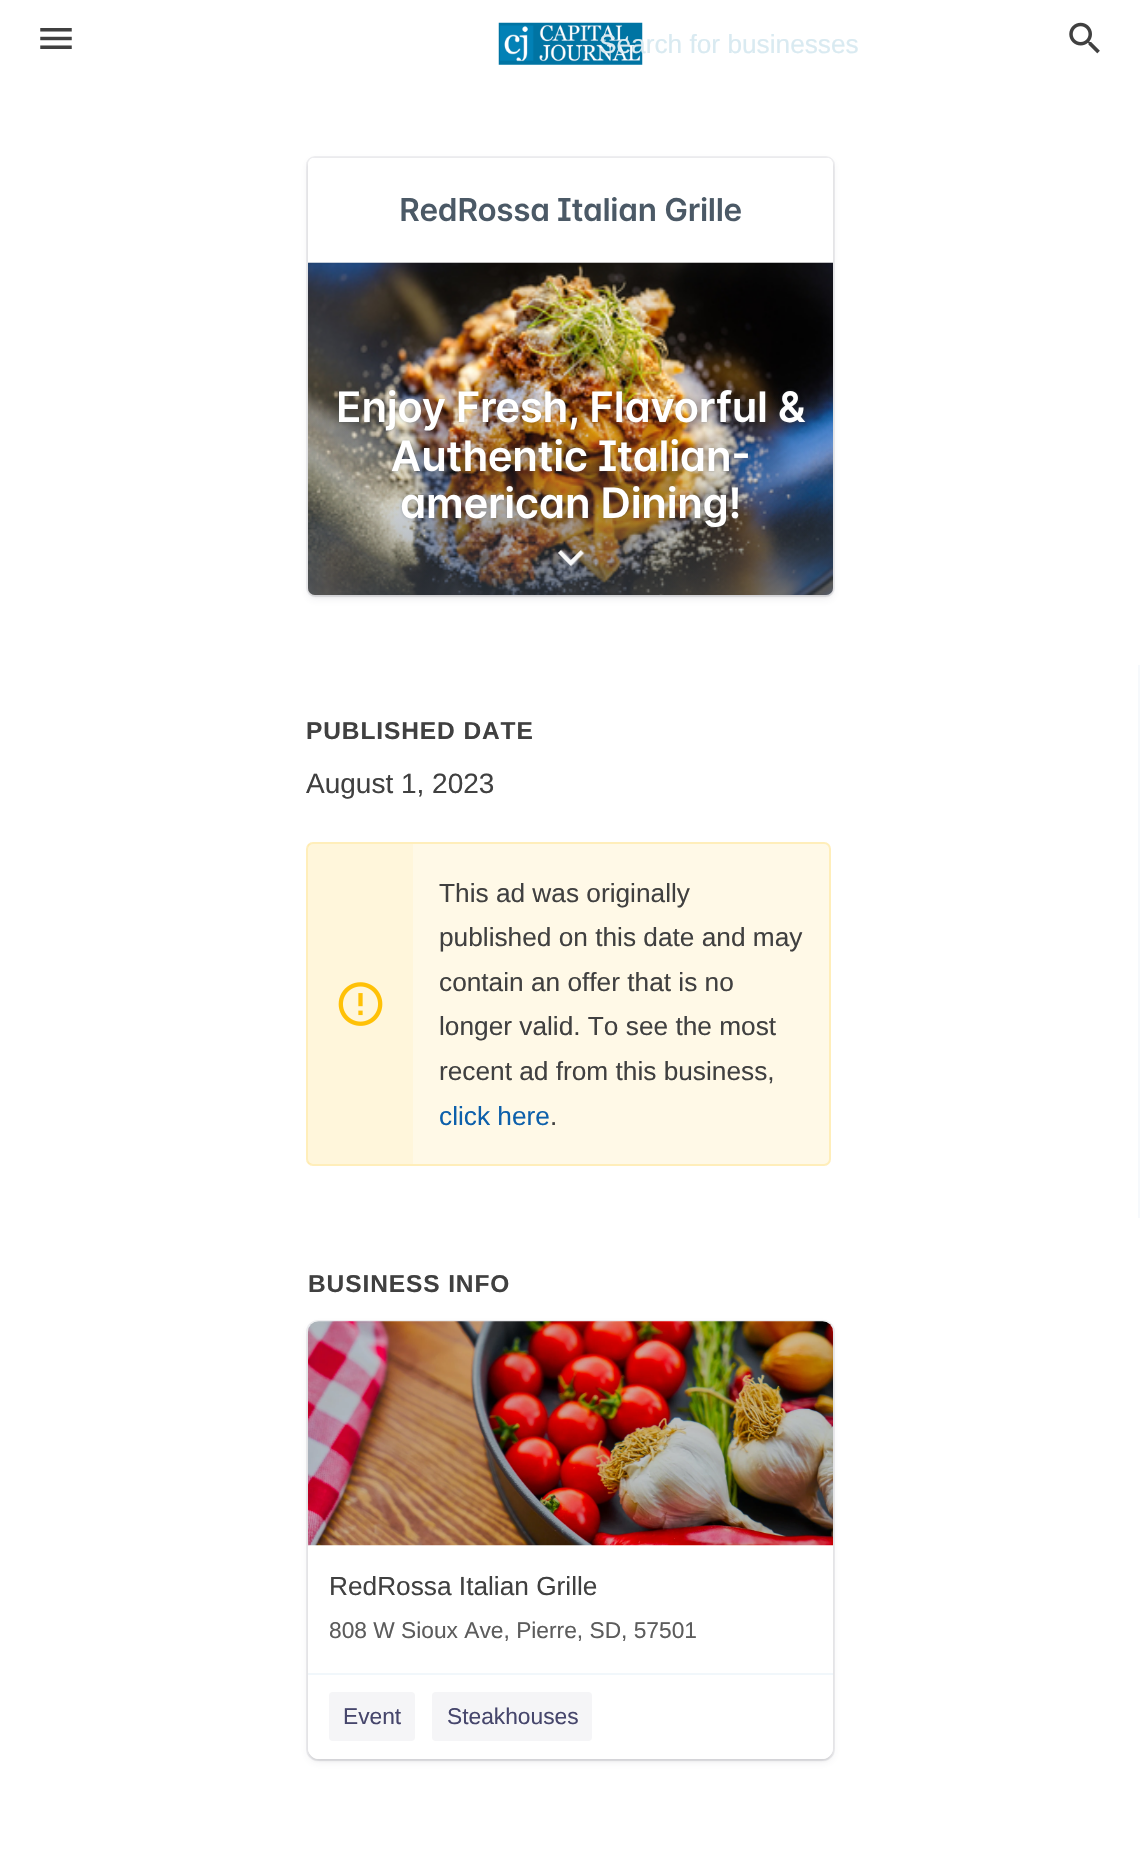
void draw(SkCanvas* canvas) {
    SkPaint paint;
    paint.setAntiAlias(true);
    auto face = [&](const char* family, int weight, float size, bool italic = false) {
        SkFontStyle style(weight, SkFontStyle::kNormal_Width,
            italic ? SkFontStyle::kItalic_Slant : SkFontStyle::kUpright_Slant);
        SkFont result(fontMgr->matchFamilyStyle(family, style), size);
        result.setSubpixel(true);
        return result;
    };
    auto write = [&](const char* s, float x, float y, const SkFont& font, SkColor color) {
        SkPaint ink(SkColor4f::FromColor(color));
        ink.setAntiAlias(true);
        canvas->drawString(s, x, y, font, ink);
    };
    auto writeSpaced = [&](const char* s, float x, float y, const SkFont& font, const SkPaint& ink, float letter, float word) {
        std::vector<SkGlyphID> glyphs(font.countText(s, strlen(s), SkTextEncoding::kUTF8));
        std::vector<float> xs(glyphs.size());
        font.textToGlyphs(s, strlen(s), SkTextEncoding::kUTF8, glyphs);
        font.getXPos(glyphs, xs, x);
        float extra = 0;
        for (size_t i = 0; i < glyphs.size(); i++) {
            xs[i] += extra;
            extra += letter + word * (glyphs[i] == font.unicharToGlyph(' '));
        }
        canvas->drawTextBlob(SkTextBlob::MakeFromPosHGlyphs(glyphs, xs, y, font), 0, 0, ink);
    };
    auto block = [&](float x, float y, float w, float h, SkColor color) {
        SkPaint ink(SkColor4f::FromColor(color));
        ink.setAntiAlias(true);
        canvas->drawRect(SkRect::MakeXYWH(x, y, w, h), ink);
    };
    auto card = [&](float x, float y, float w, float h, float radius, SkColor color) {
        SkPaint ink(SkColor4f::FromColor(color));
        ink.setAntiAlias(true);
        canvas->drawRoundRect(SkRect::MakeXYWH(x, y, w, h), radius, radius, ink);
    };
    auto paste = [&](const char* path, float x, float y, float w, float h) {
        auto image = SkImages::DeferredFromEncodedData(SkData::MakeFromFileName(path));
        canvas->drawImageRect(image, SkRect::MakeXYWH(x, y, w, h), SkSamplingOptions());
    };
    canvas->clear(SK_ColorWHITE);
    paste("pic1.png", 40, 28, 32, 21);
    paste("pic2.png", 498, 22, 145, 43);
    auto kFont1 = face("Liberation Sans", 400, 26.25f);
    write("Search for businesses", 599, 53, kFont1, SkColorSetRGB(217, 234, 241));
    paste("pic3.png", 1069, 22, 31, 32);
    paint.setColor(SkColorSetARGB(20, 60, 66, 87));
    paint.setMaskFilter(SkMaskFilter::MakeBlur(kNormal_SkBlurStyle, 4.5f));
    canvas->drawRoundRect(SkRect::MakeXYWH(308, 161, 525, 438), 7, 7, paint);
    paint.setMaskFilter(nullptr);
    paint.setStyle(SkPaint::kStroke_Style);
    paint.setStrokeWidth(2);
    canvas->drawRoundRect(SkRect::MakeXYWH(307, 157, 527, 439), 8, 8, paint);
    paint.setStyle(SkPaint::kFill_Style);
    paint.setColor(SkColorSetARGB(20, 0, 0, 0));
    paint.setMaskFilter(SkMaskFilter::MakeBlur(kNormal_SkBlurStyle, 1));
    canvas->drawRoundRect(SkRect::MakeXYWH(308, 159, 525, 438), 7, 7, paint);
    paint.setMaskFilter(nullptr);
    paste("pic4.png", 308, 158, 525, 437);
    block(1138, 665, 2, 553, SkColorSetRGB(246, 249, 252));
    auto kFont2 = face("Liberation Sans", 700, 24.5f);
    paint.setColor(SkColorSetRGB(64, 64, 64));
    writeSpaced("PUBLISHED DATE", 306, 739, kFont2, paint, 0.9f, 0);
    auto kFont3 = face("Liberation Sans", 400, 28);
    write("August 1, 2023", 306, 793, kFont3, SkColorSetRGB(64, 64, 64));
    card(306, 842, 525, 324, 7, SkColorSetRGB(255, 249, 231));
    paint.setStyle(SkPaint::kStroke_Style);
    paint.setColor(SkColorSetARGB(51, 255, 193, 7));
    canvas->drawRoundRect(SkRect::MakeXYWH(307, 843, 523, 322), 6, 6, paint);
    paste("pic5.png", 338, 982, 45, 44);
    block(308, 844, 105, 320, SkColorSetARGB(13, 255, 193, 7));
    write("This ad was originally", 439, 902, kFont1, SkColorSetRGB(64, 64, 64));
    write("published on this date and may", 439, 946, kFont1, SkColorSetRGB(64, 64, 64));
    write("contain an offer that is no", 439, 991, kFont1, SkColorSetRGB(64, 64, 64));
    write("longer valid. To see the most", 439, 1035, kFont1, SkColorSetRGB(64, 64, 64));
    write("recent ad from this business,", 439, 1080, kFont1, SkColorSetRGB(64, 64, 64));
    write("click here", 439, 1125, kFont1, SkColorSetRGB(13, 96, 171));
    write(".", 550, 1125, kFont1, SkColorSetRGB(64, 64, 64));
    paint.setStyle(SkPaint::kFill_Style);
    paint.setColor(SkColorSetRGB(64, 64, 64));
    writeSpaced("BUSINESS INFO", 308, 1292, kFont2, paint, 0.9f, 0);
    paint.setColor(SkColorSetARGB(20, 60, 66, 87));
    paint.setMaskFilter(SkMaskFilter::MakeBlur(kNormal_SkBlurStyle, 4.5f));
    canvas->drawRoundRect(SkRect::MakeXYWH(308, 1325, 525, 437), 11, 11, paint);
    paint.setMaskFilter(nullptr);
    paint.setStyle(SkPaint::kStroke_Style);
    canvas->drawRoundRect(SkRect::MakeXYWH(307, 1321, 527, 439), 11, 11, paint);
    paint.setStyle(SkPaint::kFill_Style);
    paint.setColor(SkColorSetARGB(20, 0, 0, 0));
    paint.setMaskFilter(SkMaskFilter::MakeBlur(kNormal_SkBlurStyle, 1));
    canvas->drawRoundRect(SkRect::MakeXYWH(308, 1323, 525, 438), 11, 11, paint);
    paint.setMaskFilter(nullptr);
    card(308, 1321, 525, 438, 11, SK_ColorWHITE);
    paint.setColor(SkColorSetRGB(245, 245, 245));
    canvas->drawPath(SkPathBuilder().moveTo(319, 1321).lineTo(822, 1321).cubicTo(828, 1321, 833, 1326, 833, 1332).lineTo(833, 1545).lineTo(308, 1545).lineTo(308, 1332).cubicTo(308, 1326, 313, 1321, 319, 1321).close().detach(), paint);
    paste("pic6.png", 308, 1321, 525, 225);
    write("RedRossa Italian Grille", 329, 1595, kFont1, SkColorSetRGB(64, 64, 64));
    auto kFont4 = face("Liberation Sans", 400, 22.75f);
    write("808 W Sioux Ave, Pierre, SD, 57501", 329, 1638, kFont4, SkColorSetRGB(92, 92, 92));
    paint.setColor(SK_ColorWHITE);
    canvas->drawPath(SkPathBuilder().moveTo(308, 1673).lineTo(833, 1673).lineTo(833, 1748).cubicTo(833, 1754, 828, 1759, 822, 1759).lineTo(319, 1759).cubicTo(313, 1759, 308, 1754, 308, 1748).close().detach(), paint);
    block(308, 1673, 525, 2, SkColorSetRGB(241, 247, 251));
    card(329, 1692, 86, 49, 4, SkColorSetRGB(245, 245, 247));
    write("Event", 343, 1724, kFont4, SkColorSetRGB(70, 70, 108));
    card(432, 1692, 160, 49, 4, SkColorSetRGB(245, 245, 247));
    write("Steakhouses", 447, 1724, kFont4, SkColorSetRGB(70, 70, 108));
}
